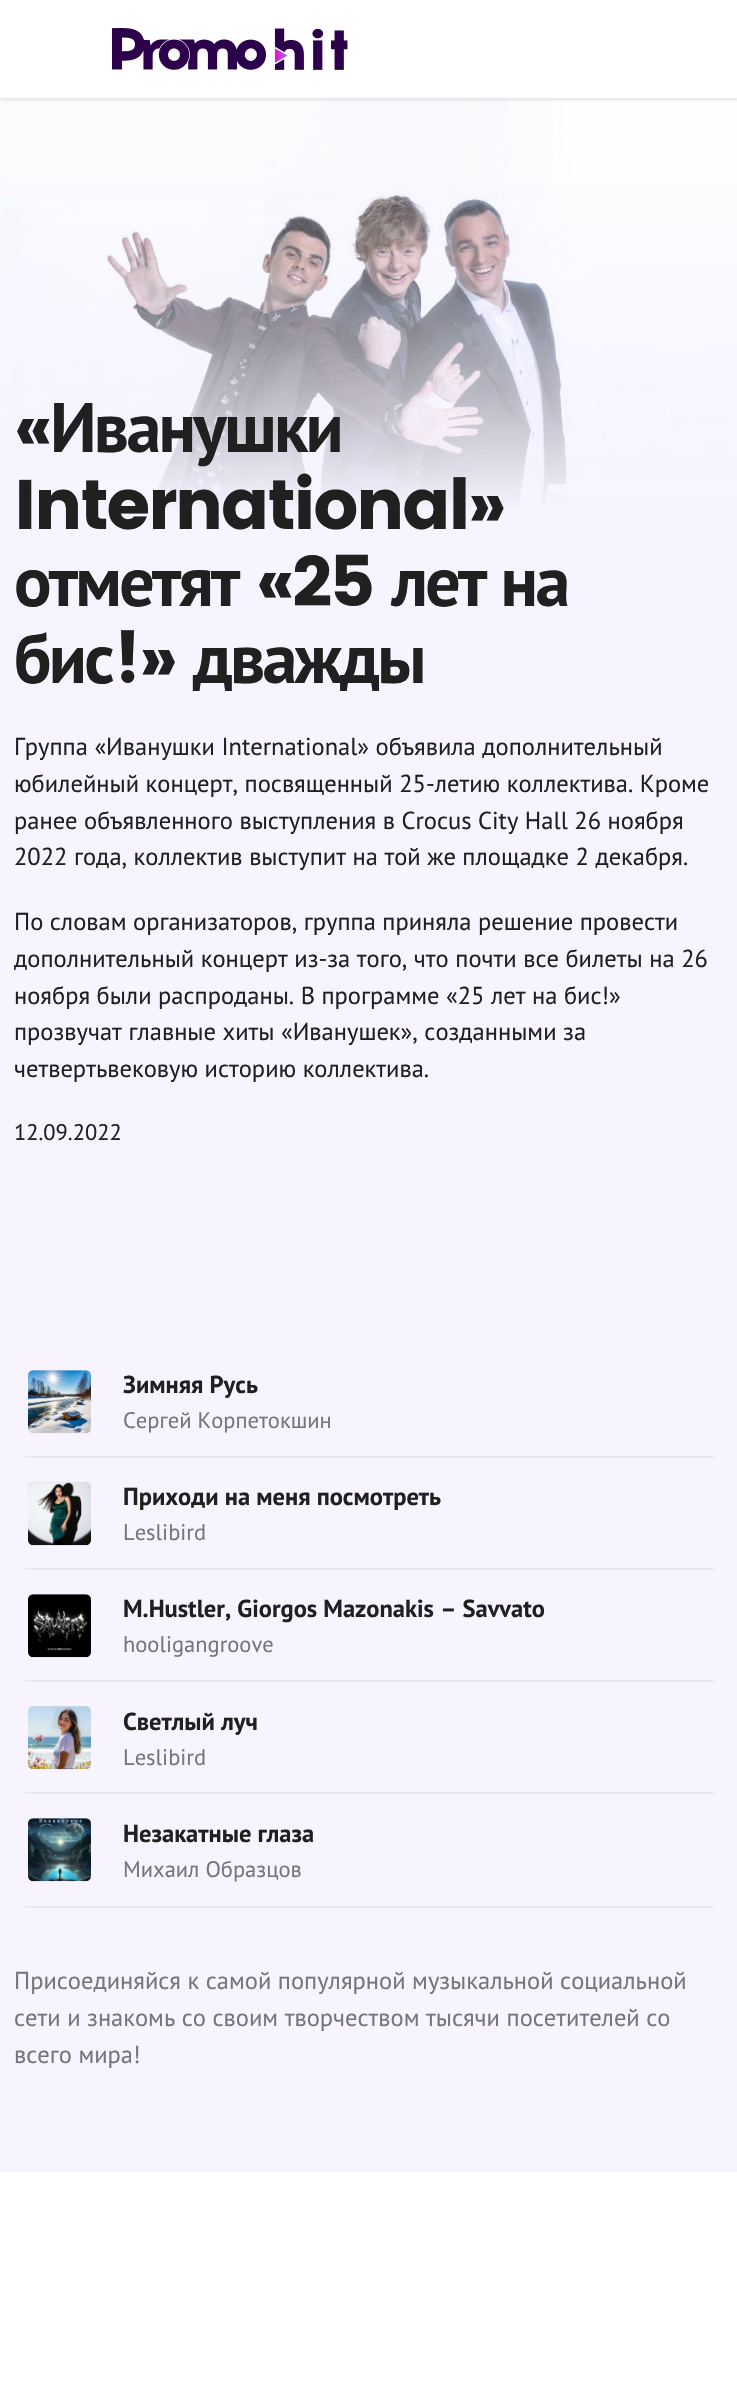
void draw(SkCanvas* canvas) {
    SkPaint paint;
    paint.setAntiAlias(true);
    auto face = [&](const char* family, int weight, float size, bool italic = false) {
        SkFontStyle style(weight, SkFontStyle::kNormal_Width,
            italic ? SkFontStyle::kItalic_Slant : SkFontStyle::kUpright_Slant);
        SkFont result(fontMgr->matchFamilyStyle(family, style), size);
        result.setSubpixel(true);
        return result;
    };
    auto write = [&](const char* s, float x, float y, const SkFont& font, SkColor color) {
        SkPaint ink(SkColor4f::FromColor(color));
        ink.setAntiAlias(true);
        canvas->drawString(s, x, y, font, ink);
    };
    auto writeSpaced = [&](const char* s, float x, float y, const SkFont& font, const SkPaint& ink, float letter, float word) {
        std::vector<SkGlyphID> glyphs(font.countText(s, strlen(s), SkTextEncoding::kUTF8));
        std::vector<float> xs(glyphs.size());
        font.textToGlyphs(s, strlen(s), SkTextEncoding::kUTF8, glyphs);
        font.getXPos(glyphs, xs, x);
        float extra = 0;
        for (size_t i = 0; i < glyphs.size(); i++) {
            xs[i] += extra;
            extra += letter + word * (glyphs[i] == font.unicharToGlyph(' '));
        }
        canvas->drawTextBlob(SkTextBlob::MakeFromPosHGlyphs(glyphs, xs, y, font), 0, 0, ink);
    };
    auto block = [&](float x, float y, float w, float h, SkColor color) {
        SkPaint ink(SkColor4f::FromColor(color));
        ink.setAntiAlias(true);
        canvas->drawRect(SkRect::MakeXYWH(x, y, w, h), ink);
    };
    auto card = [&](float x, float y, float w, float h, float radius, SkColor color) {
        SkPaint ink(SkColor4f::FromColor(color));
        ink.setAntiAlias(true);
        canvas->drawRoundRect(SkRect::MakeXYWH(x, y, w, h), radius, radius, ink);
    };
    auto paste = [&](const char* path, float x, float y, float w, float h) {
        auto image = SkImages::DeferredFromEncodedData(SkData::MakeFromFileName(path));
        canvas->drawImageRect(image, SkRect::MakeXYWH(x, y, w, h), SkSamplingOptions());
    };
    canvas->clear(SK_ColorWHITE);
    paste("pic2.png", 0, 98, 737, 413);
    canvas->save();
    canvas->clipRect(SkRect::MakeXYWH(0, 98, 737, 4));
    paint.setColor(SkColorSetARGB(26, 0, 0, 0));
    paint.setMaskFilter(SkMaskFilter::MakeBlur(kNormal_SkBlurStyle, 2));
    canvas->drawRect(SkRect::MakeXYWH(0, 2, 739, 98), paint);
    paint.setMaskFilter(nullptr);
    canvas->restore();
    paste("pic1.png", 112, 28, 236, 42);
    block(0, 513, 737, 1659, SkColorSetRGB(247, 244, 255));
    {
        const SkColor colors[] = {SkColorSetRGB(247, 244, 255), SkColorSetARGB(0, 247, 244, 255)};
        const float stops[] = {0, 1};
        const SkPoint ends[] = {{369, 513}, {369, 98}};
        paint.setShader(SkGradientShader::MakeLinear(ends, colors, stops, 2, SkTileMode::kClamp));
        paint.setAlpha(255);
    }
    canvas->drawRect(SkRect::MakeXYWH(0, 183, 737, 330), paint);
    auto kFont1 = face("Poppins", 700, 70);
    paint.setShader(nullptr);
    paint.setColor(SkColorSetRGB(32, 32, 33));
    writeSpaced("«", 14, 452, kFont1, paint, -2.75f, 0);
    auto kFont2 = face("PT Sans", 700, 70);
    writeSpaced("Иванушки", 50, 452, kFont2, paint, -2.75f, 0);
    writeSpaced("International»", 14, 529, kFont1, paint, -2.75f, 0);
    writeSpaced("отметят", 14, 606, kFont2, paint, -2.75f, 0);
    writeSpaced("«25", 256, 606, kFont1, paint, -2.75f, 0);
    writeSpaced("лет на", 392, 606, kFont2, paint, -2.75f, 1);
    writeSpaced("бис", 14, 683, kFont2, paint, -2.75f, 0);
    writeSpaced("!»", 112, 683, kFont1, paint, -2.75f, 0);
    writeSpaced("дважды", 193, 683, kFont2, paint, -2.75f, 0);
    auto kFont3 = face("PT Sans", 400, 24.5f);
    write("Группа «Иванушки International» объявила дополнительный", 14, 755, kFont3, SkColorSetRGB(32, 32, 33));
    write("юбилейный концерт, посвященный 25-летию коллектива. Кроме", 14, 792, kFont3, SkColorSetRGB(32, 32, 33));
    write("ранее объявленного выступления в Crocus City Hall 26 ноября", 14, 829, kFont3, SkColorSetRGB(32, 32, 33));
    write("2022 года, коллектив выступит на той же площадке 2 декабря.", 14, 865, kFont3, SkColorSetRGB(32, 32, 33));
    write("По словам организаторов, группа приняла решение провести", 14, 930, kFont3, SkColorSetRGB(32, 32, 33));
    write("дополнительный концерт из-за того, что почти все билеты на 26", 14, 967, kFont3, SkColorSetRGB(32, 32, 33));
    write("ноября были распроданы. В программе «25 лет на бис!»", 14, 1004, kFont3, SkColorSetRGB(32, 32, 33));
    write("прозвучат главные хиты «Иванушек», созданными за", 14, 1040, kFont3, SkColorSetRGB(32, 32, 33));
    write("четвертьвековую историю коллектива.", 14, 1077, kFont3, SkColorSetRGB(32, 32, 33));
    auto kFont4 = face("PT Sans", 400, 22.5f);
    write("12.09.2022", 14, 1140, kFont4, SkColorSetRGB(32, 32, 33));
    card(28, 1370, 63, 63, 5, SkColorSetRGB(222, 219, 228));
    paste("pic3.png", 28, 1370, 63, 64);
    auto kFont5 = face("PT Sans", 700, 24.5f);
    write("Зимняя Русь", 123, 1393, kFont5, SkColorSetRGB(32, 32, 33));
    write("Сергей Корпетокшин", 123, 1428, kFont4, SkColorSetRGB(118, 117, 122));
    block(25, 1456, 689, 2, SkColorSetRGB(234, 232, 242));
    card(28, 1482, 63, 63, 5, SkColorSetRGB(222, 219, 228));
    paste("pic4.png", 28, 1482, 63, 64);
    write("Приходи на меня посмотреть", 123, 1505, kFont5, SkColorSetRGB(32, 32, 33));
    write("Leslibird", 123, 1540, kFont4, SkColorSetRGB(118, 117, 122));
    block(25, 1568, 689, 2, SkColorSetRGB(234, 232, 242));
    card(28, 1594, 63, 63, 5, SkColorSetRGB(222, 219, 228));
    paste("pic5.png", 28, 1594, 63, 64);
    write("M.Hustler, Giorgos Mazonakis – Savvato", 123, 1617, kFont5, SkColorSetRGB(32, 32, 33));
    write("hooligangroove", 123, 1652, kFont4, SkColorSetRGB(118, 117, 122));
    block(25, 1680, 689, 2, SkColorSetRGB(234, 232, 242));
    card(28, 1706, 63, 63, 5, SkColorSetRGB(222, 219, 228));
    paste("pic6.png", 28, 1706, 63, 64);
    write("Светлый луч", 123, 1730, kFont5, SkColorSetRGB(32, 32, 33));
    write("Leslibird", 123, 1765, kFont4, SkColorSetRGB(118, 117, 122));
    block(25, 1792, 689, 2, SkColorSetRGB(234, 232, 242));
    card(28, 1818, 63, 63, 5, SkColorSetRGB(222, 219, 228));
    paste("pic7.png", 28, 1818, 63, 64);
    write("Незакатные глаза", 123, 1842, kFont5, SkColorSetRGB(32, 32, 33));
    write("Михаил Образцов", 123, 1877, kFont4, SkColorSetRGB(118, 117, 122));
    block(25, 1906, 689, 2, SkColorSetRGB(234, 232, 242));
    write("Присоединяйся к самой популярной музыкальной социальной", 14, 1989, kFont3, SkColorSetRGB(118, 117, 122));
    write("сети и знакомь со своим творчеством тысячи посетителей со", 14, 2026, kFont3, SkColorSetRGB(118, 117, 122));
    write("всего мира!", 14, 2063, kFont3, SkColorSetRGB(118, 117, 122));
}
